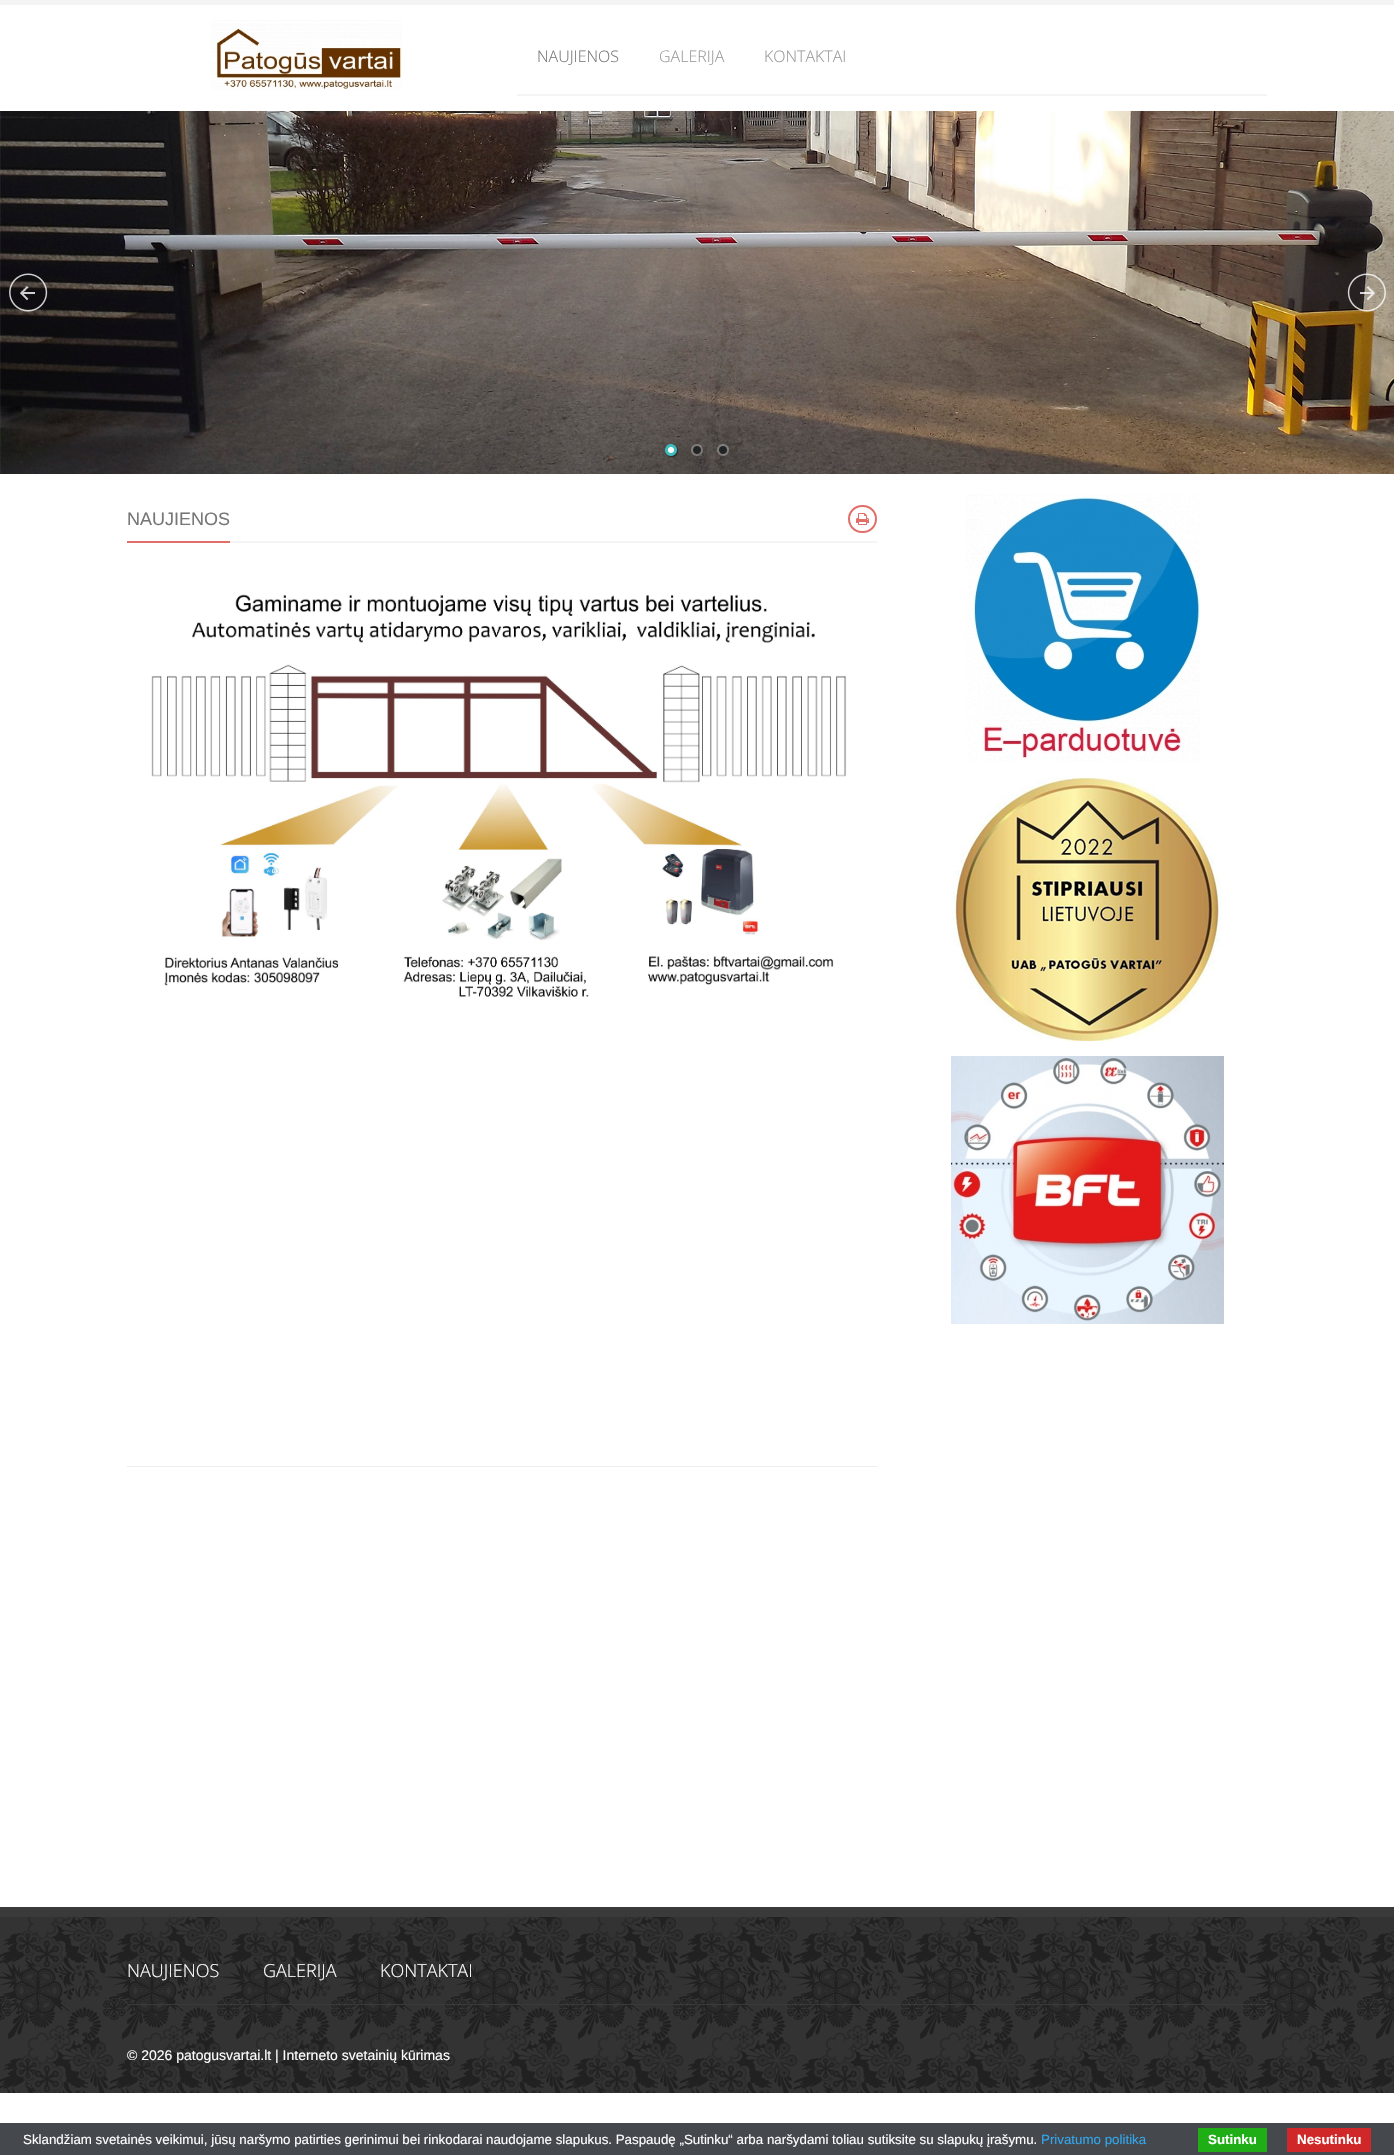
void draw(SkCanvas* canvas) {
    SkPaint paint;
    paint.setAntiAlias(true);
    auto face = [&](const char* family, int weight, float size, bool italic = false) {
        SkFontStyle style(weight, SkFontStyle::kNormal_Width,
            italic ? SkFontStyle::kItalic_Slant : SkFontStyle::kUpright_Slant);
        SkFont result(fontMgr->matchFamilyStyle(family, style), size);
        result.setSubpixel(true);
        return result;
    };
    auto write = [&](const char* s, float x, float y, const SkFont& font, SkColor color) {
        SkPaint ink(SkColor4f::FromColor(color));
        ink.setAntiAlias(true);
        canvas->drawString(s, x, y, font, ink);
    };
    auto block = [&](float x, float y, float w, float h, SkColor color) {
        SkPaint ink(SkColor4f::FromColor(color));
        ink.setAntiAlias(true);
        canvas->drawRect(SkRect::MakeXYWH(x, y, w, h), ink);
    };
    auto paste = [&](const char* path, float x, float y, float w, float h) {
        auto image = SkImages::DeferredFromEncodedData(SkData::MakeFromFileName(path));
        canvas->drawImageRect(image, SkRect::MakeXYWH(x, y, w, h), SkSamplingOptions());
    };
    canvas->clear(SK_ColorWHITE);
    block(0, 0, 1394, 5, SkColorSetRGB(244, 244, 244));
    paste("pic1.png", 211, 20, 191, 70);
    block(517, 94, 750, 2, SkColorSetRGB(244, 244, 244));
    auto kFont1 = face("Open Sans", 300, 16);
    write("NAUJIENOS", 537, 62, kFont1, SkColorSetRGB(119, 119, 119));
    write("GALERIJA", 659, 62, kFont1, SkColorSetRGB(153, 153, 153));
    write("KONTAKTAI", 764, 62, kFont1, SkColorSetRGB(153, 153, 153));
    paste("pic2.png", 0, 111, 1394, 363);
    paste("pic3.png", 9, 273, 39, 39);
    paste("pic4.png", 1347, 273, 39, 39);
    paste("pic5.png", 665, 444, 14, 14);
    paste("pic6.png", 691, 444, 12, 12);
    paste("pic7.png", 717, 444, 12, 12);
    block(230, 541, 647, 2, SkColorSetRGB(244, 244, 244));
    block(127, 541, 103, 2, SkColorSetRGB(226, 110, 106));
    auto kFont2 = face("Liberation Sans", 400, 18);
    write("NAUJIENOS", 127, 525, kFont2, SkColorSetRGB(119, 119, 119));
    paint.setStyle(SkPaint::kStroke_Style);
    paint.setStrokeWidth(2);
    paint.setColor(SkColorSetRGB(226, 110, 106));
    canvas->drawRoundRect(SkRect::MakeXYWH(849, 506, 27, 26), 13, 13, paint);
    paste("pic8.png", 856, 513, 13, 12);
    paste("pic9.png", 151, 594, 696, 403);
    block(127, 1466, 750, 1, SkColorSetRGB(238, 238, 238));
    paste("pic10.png", 965, 494, 235, 268);
    paste("pic11.png", 953, 778, 268, 263);
    paste("pic12.png", 951, 1056, 273, 268);
    paste("pic13.png", 0, 1917, 1394, 176);
    block(0, 1907, 1394, 10, SkColorSetRGB(58, 58, 58));
    block(127, 2004, 1140, 1, SkColorSetRGB(58, 58, 58));
    auto kFont3 = face("Open Sans", 300, 18);
    write("NAUJIENOS", 127, 1977, kFont3, SK_ColorWHITE);
    write("GALERIJA", 263, 1977, kFont3, SK_ColorWHITE);
    write("KONTAKTAI", 380, 1977, kFont3, SK_ColorWHITE);
    auto kFont4 = face("Liberation Sans", 400, 14);
    write("© 2026 patogusvartai.lt | Interneto svetainių kūrimas", 127, 2060, kFont4, SK_ColorWHITE);
    block(0, 2123, 1394, 32, SkColorSetRGB(69, 72, 77));
    auto kFont5 = face("Liberation Sans", 400, 13.33f);
    write("Sklandžiam svetainės veikimui, jūsų naršymo patirties gerinimui bei rinkodarai naudojame slapukus. Paspaudę „Sutinku“ arba naršydami toliau sutiksite su slapukų įrašymu.", 23, 2144, kFont5, SK_ColorWHITE);
    write("Privatumo politika", 1041, 2144, kFont5, SkColorSetRGB(49, 168, 240));
    block(1198, 2128, 69, 24, SkColorSetRGB(31, 174, 22));
    auto kFont6 = face("Liberation Sans", 700, 13.33f);
    write("Sutinku", 1208, 2144, kFont6, SK_ColorWHITE);
    block(1287, 2128, 84, 24, SkColorSetRGB(208, 40, 40));
    write("Nesutinku", 1297, 2144, kFont6, SK_ColorWHITE);
}
